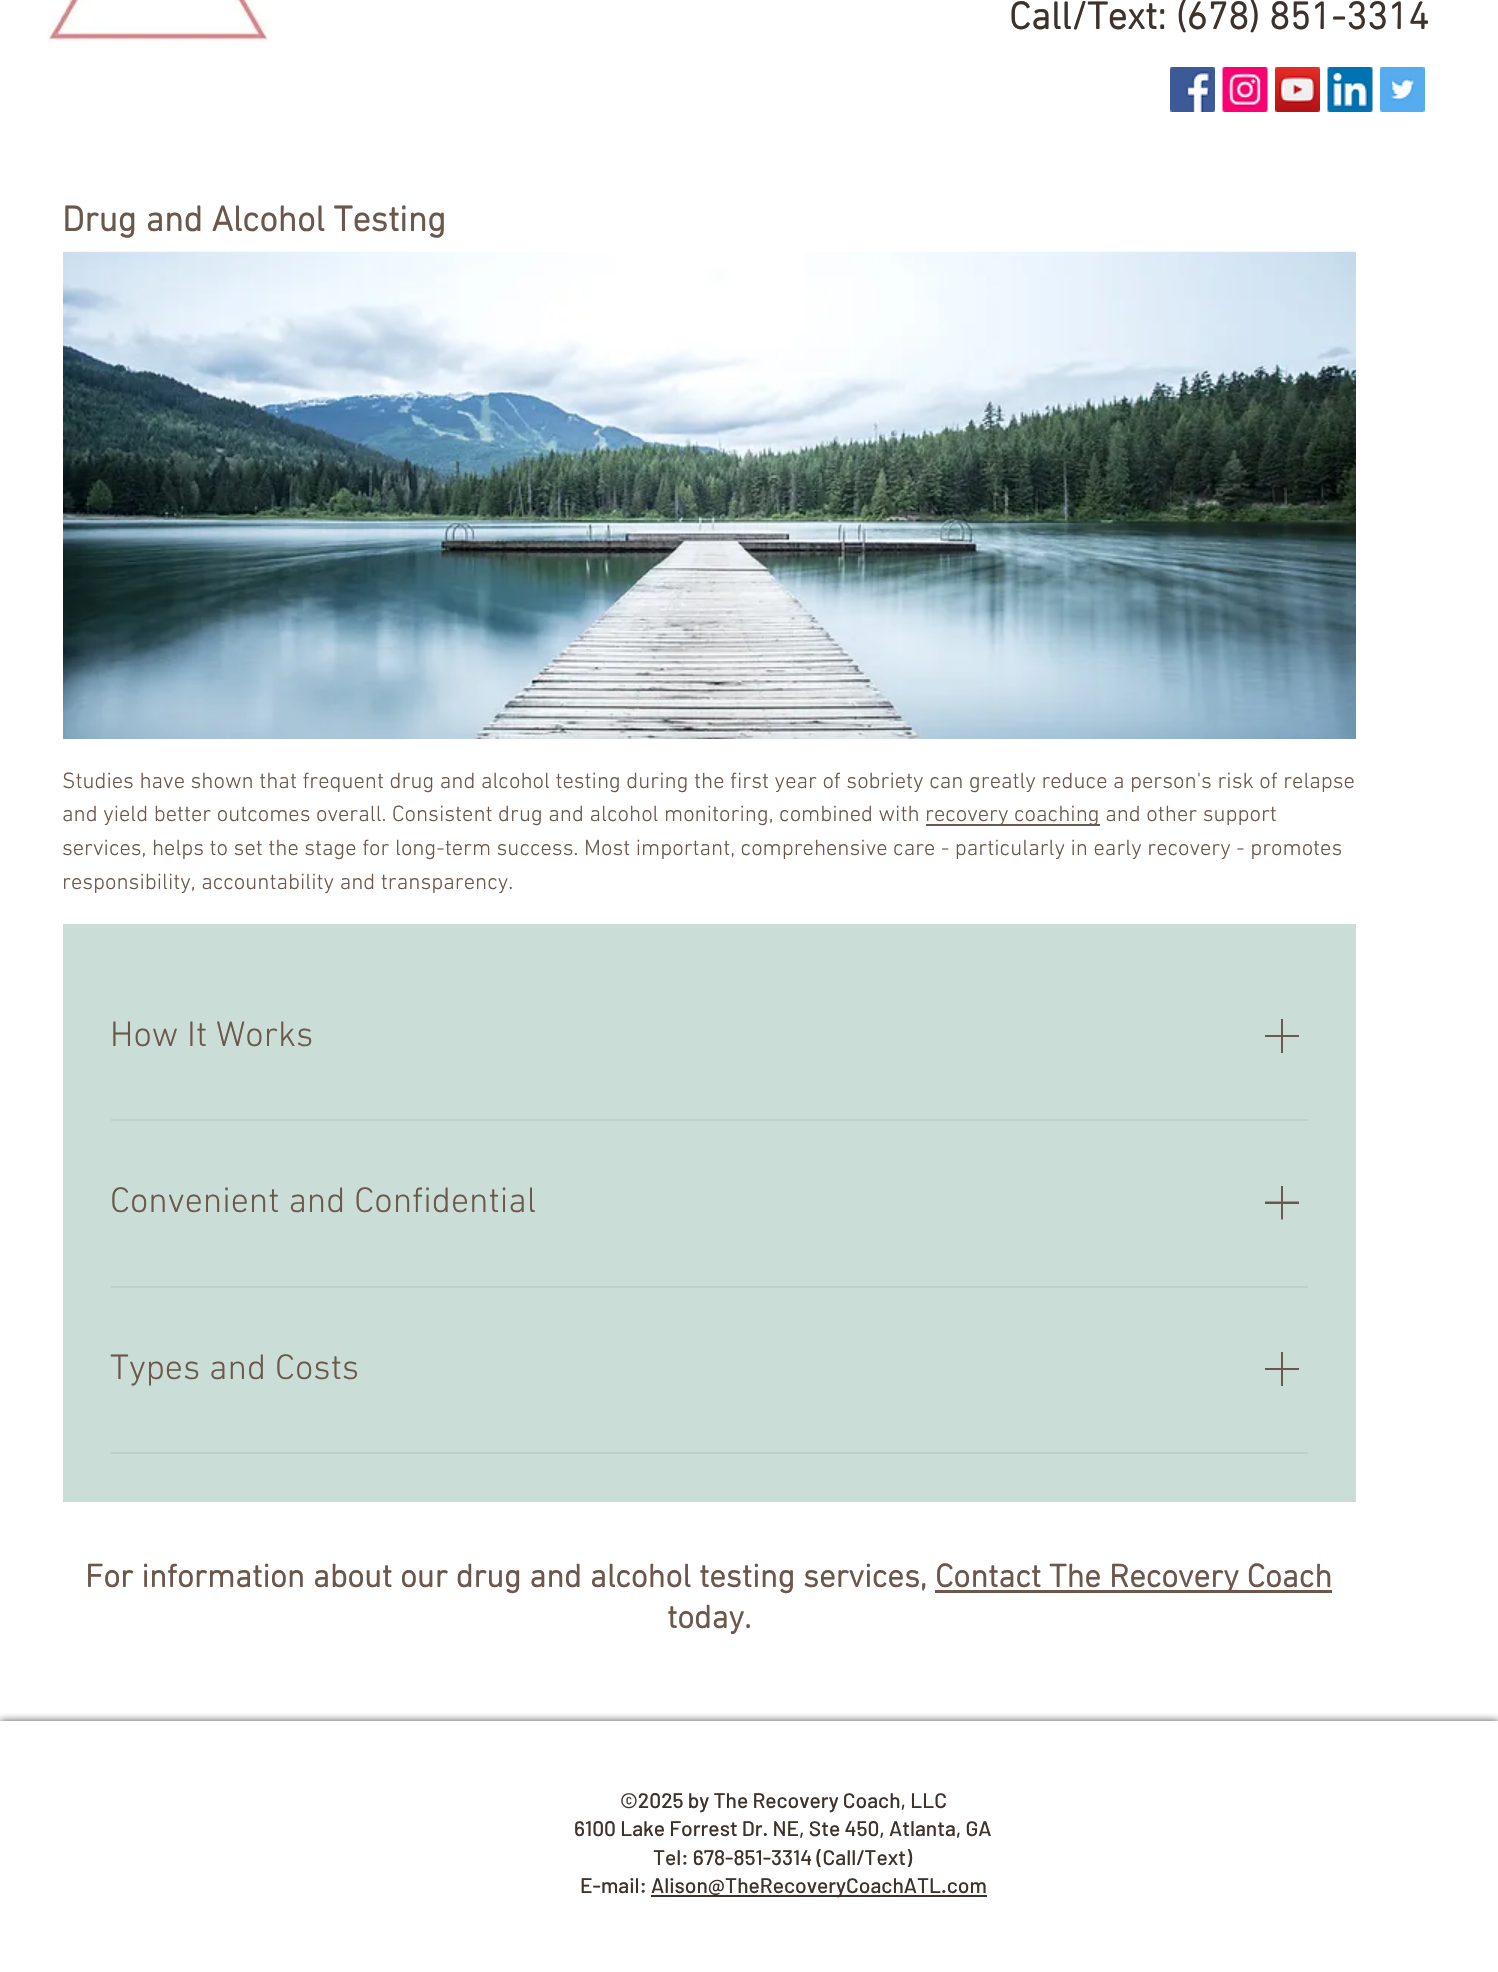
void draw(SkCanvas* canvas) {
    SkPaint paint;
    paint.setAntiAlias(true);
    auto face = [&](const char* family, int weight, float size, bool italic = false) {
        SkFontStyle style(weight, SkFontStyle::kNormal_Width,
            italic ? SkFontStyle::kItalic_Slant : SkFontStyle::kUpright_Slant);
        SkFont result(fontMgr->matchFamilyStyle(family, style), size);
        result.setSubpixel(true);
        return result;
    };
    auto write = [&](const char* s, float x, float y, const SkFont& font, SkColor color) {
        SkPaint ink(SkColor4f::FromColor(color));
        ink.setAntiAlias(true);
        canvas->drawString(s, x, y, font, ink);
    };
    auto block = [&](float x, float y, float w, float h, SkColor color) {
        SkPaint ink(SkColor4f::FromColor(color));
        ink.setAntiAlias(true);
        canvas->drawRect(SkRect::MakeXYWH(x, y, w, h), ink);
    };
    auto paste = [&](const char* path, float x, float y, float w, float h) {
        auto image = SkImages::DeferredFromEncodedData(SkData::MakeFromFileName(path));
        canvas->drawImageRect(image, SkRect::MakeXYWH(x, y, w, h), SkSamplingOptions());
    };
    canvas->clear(SK_ColorWHITE);
    paste("pic1.png", 47, 0, 223, 42);
    auto kFont1 = face("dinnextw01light", 700, 39);
    write("Call/Text: (678) 851-3314", 1009, 29, kFont1, SkColorSetRGB(62, 51, 44));
    paste("pic2.png", 1170, 67, 45, 45);
    paste("pic3.png", 1222, 67, 46, 45);
    paste("pic4.png", 1275, 67, 45, 45);
    paste("pic5.png", 1327, 67, 46, 45);
    paste("pic6.png", 1380, 67, 45, 45);
    auto kFont2 = face("dinnextw01light", 700, 36);
    write("Drug and Alcohol Testing", 62, 231, kFont2, SkColorSetRGB(107, 87, 76));
    paste("pic7.png", 63, 251, 1293, 488);
    auto kFont3 = face("dinnextw01light", 300, 22.5f);
    write("Studies have shown that frequent drug and alcohol testing during the first year of sobriety can greatly reduce a person's risk of relapse", 62, 788, kFont3, SkColorSetRGB(107, 87, 76));
    write("and yield better outcomes overall. Consistent drug and alcohol monitoring, combined with", 62, 821, kFont3, SkColorSetRGB(107, 87, 76));
    block(926, 824, 174, 2, SkColorSetRGB(107, 87, 76));
    write("recovery coaching and other support", 925, 821, kFont3, SkColorSetRGB(107, 87, 76));
    write("services, helps to set the stage for long-term success. Most important, comprehensive care - particularly in early recovery - promotes", 62, 855, kFont3, SkColorSetRGB(107, 87, 76));
    write("responsibility, accountability and transparency.", 62, 889, kFont3, SkColorSetRGB(107, 87, 76));
    block(63, 924, 1293, 578, SkColorSetRGB(202, 221, 214));
    auto kFont4 = face("dinnextw01light", 300, 36);
    write("How It Works", 110, 1046, kFont4, SkColorSetRGB(107, 87, 76));
    paint.setColor(SkColorSetRGB(107, 87, 76));
    canvas->drawPath(SkPathBuilder(SkPathFillType::kEvenOdd).moveTo(1283, 1019).lineTo(1283, 1035).lineTo(1299, 1035).lineTo(1299, 1037).lineTo(1283, 1037).lineTo(1283, 1053).lineTo(1281, 1053).lineTo(1281, 1037).lineTo(1265, 1037).lineTo(1265, 1035).lineTo(1281, 1035).lineTo(1281, 1019).close().detach(), paint);
    block(111, 1119, 1197, 2, SkColorSetRGB(193, 207, 201));
    write("Convenient and Confidential", 110, 1212, kFont4, SkColorSetRGB(107, 87, 76));
    canvas->drawPath(SkPathBuilder(SkPathFillType::kEvenOdd).moveTo(1283, 1186).lineTo(1283, 1201.5f).lineTo(1299, 1201.5f).lineTo(1299, 1204).lineTo(1283, 1204).lineTo(1283, 1219.5f).lineTo(1281, 1219.5f).lineTo(1281, 1204).lineTo(1265, 1204).lineTo(1265, 1201.5f).lineTo(1281, 1201.5f).lineTo(1281, 1186).close().detach(), paint);
    block(111, 1286, 1197, 2, SkColorSetRGB(193, 207, 201));
    write("Types and Costs", 110, 1379, kFont4, SkColorSetRGB(107, 87, 76));
    canvas->drawPath(SkPathBuilder(SkPathFillType::kEvenOdd).moveTo(1283, 1352).lineTo(1283, 1368).lineTo(1299, 1368).lineTo(1299, 1370).lineTo(1283, 1370).lineTo(1283, 1386).lineTo(1281, 1386).lineTo(1281, 1370).lineTo(1265, 1370).lineTo(1265, 1368).lineTo(1281, 1368).lineTo(1281, 1352).close().detach(), paint);
    block(111, 1452, 1197, 2, SkColorSetRGB(193, 207, 201));
    auto kFont5 = face("dinnextw01light", 700, 33);
    write("For information about our drug and alcohol testing services,", 85, 1587, kFont5, SkColorSetRGB(107, 87, 76));
    block(935, 1590, 397, 3, SkColorSetRGB(107, 87, 76));
    write("Contact The Recovery Coach", 935, 1587, kFont5, SkColorSetRGB(107, 87, 76));
    write("today.", 667, 1628, kFont5, SkColorSetRGB(107, 87, 76));
    canvas->save();
    canvas->clipRect(SkRect::MakeXYWH(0, 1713, 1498, 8));
    paint.setColor(SkColorSetARGB(179, 0, 0, 0));
    paint.setMaskFilter(SkMaskFilter::MakeBlur(kNormal_SkBlurStyle, 4));
    canvas->drawRect(SkRect::MakeXYWH(0, 1721, 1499, 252), paint);
    paint.setMaskFilter(nullptr);
    canvas->restore();
    auto kFont6 = face("Barlow", 500, 21);
    write("©2025 by The Recovery Coach, LLC", 620, 1808, kFont6, SkColorSetRGB(62, 51, 44));
    write("6100 Lake Forrest Dr. NE, Ste 450, Atlanta, GA", 574, 1836, kFont6, SkColorSetRGB(62, 51, 44));
    write("Tel: 678-851-3314 (Call/Text)", 653, 1865, kFont6, SkColorSetRGB(62, 51, 44));
    write("E-mail:", 580, 1893, kFont6, SkColorSetRGB(62, 51, 44));
    block(651, 1895, 336, 2, SkColorSetRGB(62, 51, 44));
    write("Alison@TheRecoveryCoachATL.com", 651, 1893, kFont6, SkColorSetRGB(62, 51, 44));
}
